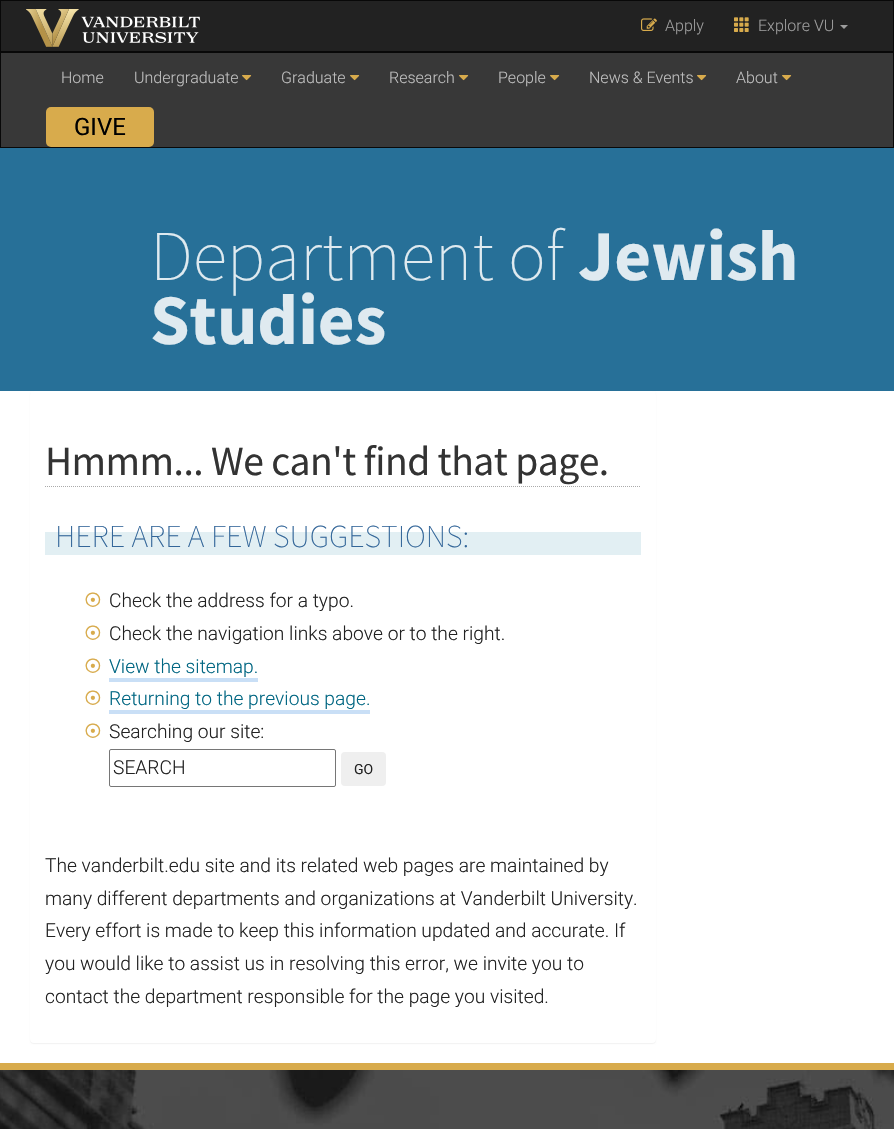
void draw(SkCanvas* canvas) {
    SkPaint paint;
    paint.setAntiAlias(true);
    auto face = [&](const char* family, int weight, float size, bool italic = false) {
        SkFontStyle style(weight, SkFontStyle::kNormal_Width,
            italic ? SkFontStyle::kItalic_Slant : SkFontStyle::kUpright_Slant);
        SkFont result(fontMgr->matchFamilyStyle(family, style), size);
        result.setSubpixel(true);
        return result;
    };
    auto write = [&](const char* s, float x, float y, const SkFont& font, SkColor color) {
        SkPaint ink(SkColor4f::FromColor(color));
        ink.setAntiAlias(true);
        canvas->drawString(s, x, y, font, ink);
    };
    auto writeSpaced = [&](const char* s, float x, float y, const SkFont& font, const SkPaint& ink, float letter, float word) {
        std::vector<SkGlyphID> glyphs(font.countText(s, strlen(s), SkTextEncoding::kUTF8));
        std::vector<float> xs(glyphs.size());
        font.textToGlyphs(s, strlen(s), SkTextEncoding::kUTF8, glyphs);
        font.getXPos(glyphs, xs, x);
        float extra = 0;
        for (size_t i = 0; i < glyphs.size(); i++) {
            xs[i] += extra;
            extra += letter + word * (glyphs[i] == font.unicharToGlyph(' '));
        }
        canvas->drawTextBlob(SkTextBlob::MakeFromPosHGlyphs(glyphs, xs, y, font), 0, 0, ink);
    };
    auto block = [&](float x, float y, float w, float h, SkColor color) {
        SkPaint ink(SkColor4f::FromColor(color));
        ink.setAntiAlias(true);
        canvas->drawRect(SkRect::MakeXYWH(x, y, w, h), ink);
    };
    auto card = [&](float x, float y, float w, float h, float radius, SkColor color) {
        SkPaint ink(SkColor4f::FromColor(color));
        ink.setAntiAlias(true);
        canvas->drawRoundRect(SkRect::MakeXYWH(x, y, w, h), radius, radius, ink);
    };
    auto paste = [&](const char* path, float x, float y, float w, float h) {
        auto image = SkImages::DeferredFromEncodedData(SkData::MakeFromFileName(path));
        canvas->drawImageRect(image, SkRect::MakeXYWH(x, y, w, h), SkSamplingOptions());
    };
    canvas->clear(SK_ColorWHITE);
    paint.setColor(SkColorSetRGB(34, 34, 34));
    canvas->drawRect(SkRect::MakeXYWH(0.5f, 0.5f, 893, 51), paint);
    paint.setStyle(SkPaint::kStroke_Style);
    paint.setStrokeWidth(1);
    paint.setColor(SkColorSetRGB(8, 8, 8));
    canvas->drawRect(SkRect::MakeXYWH(0.5f, 0.5f, 893, 51), paint);
    paste("pic1.png", 26, 9, 174, 38);
    paste("pic2.png", 641, 18, 16, 13);
    auto kFont1 = face("Roboto", 300, 16);
    write("Apply", 665, 31, kFont1, SkColorSetRGB(157, 157, 157));
    paste("pic3.png", 734, 17, 15, 15);
    write("Explore VU", 758, 31, kFont1, SkColorSetRGB(157, 157, 157));
    paint.setStyle(SkPaint::kFill_Style);
    paint.setColor(SkColorSetRGB(157, 157, 157));
    canvas->drawPath(SkPathBuilder().moveTo(840, 25).lineTo(848, 25).lineTo(844, 29).close().detach(), paint);
    paint.setColor(SkColorSetRGB(56, 56, 56));
    canvas->drawRect(SkRect::MakeXYWH(0.5f, 52.5f, 893, 95), paint);
    paint.setStyle(SkPaint::kStroke_Style);
    paint.setColor(SkColorSetRGB(8, 8, 8));
    canvas->drawRect(SkRect::MakeXYWH(0.5f, 52.5f, 893, 95), paint);
    write("Home", 61, 83, kFont1, SkColorSetRGB(191, 191, 191));
    write("Undergraduate", 134, 83, kFont1, SkColorSetRGB(191, 191, 191));
    paste("pic4.png", 242, 75, 10, 6);
    write("Graduate", 281, 83, kFont1, SkColorSetRGB(191, 191, 191));
    paste("pic4.png", 350, 75, 10, 6);
    write("Research", 389, 83, kFont1, SkColorSetRGB(191, 191, 191));
    paste("pic4.png", 459, 75, 10, 6);
    write("People", 498, 83, kFont1, SkColorSetRGB(191, 191, 191));
    paste("pic4.png", 550, 75, 10, 6);
    write("News & Events", 589, 83, kFont1, SkColorSetRGB(191, 191, 191));
    paste("pic4.png", 697, 75, 10, 6);
    write("About", 736, 83, kFont1, SkColorSetRGB(191, 191, 191));
    paste("pic4.png", 782, 75, 10, 6);
    card(46, 107, 108, 40, 5, SkColorSetRGB(216, 171, 76));
    auto kFont2 = face("Roboto", 400, 24);
    write("GIVE", 74, 135, kFont2, SK_ColorBLACK);
    block(0, 148, 894, 243, SkColorSetRGB(39, 112, 152));
    auto kFont3 = face("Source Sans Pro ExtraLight", 200, 71.25f);
    write("Department of", 150, 280, kFont3, SkColorSetRGB(223, 234, 240));
    auto kFont4 = face("Source Sans Pro", 700, 71.25f);
    write("Jewish", 578, 280, kFont4, SkColorSetRGB(223, 234, 240));
    write("Studies", 150, 344, kFont4, SkColorSetRGB(223, 234, 240));
    paint.setStyle(SkPaint::kFill_Style);
    paint.setColor(SkColorSetARGB(13, 0, 0, 0));
    paint.setMaskFilter(SkMaskFilter::MakeBlur(kNormal_SkBlurStyle, 0.5f));
    canvas->drawRoundRect(SkRect::MakeXYWH(30, 392, 626, 652), 4, 4, paint);
    paint.setMaskFilter(nullptr);
    card(30, 391, 626, 652, 4, SK_ColorWHITE);
    paint.setStyle(SkPaint::kStroke_Style);
    paint.setColor(SkColorSetRGB(170, 170, 170));
    paint.setPathEffect(SkDashPathEffect::Make({{1, 1}}, 0));
    canvas->drawPath(SkPathBuilder().moveTo(45, 486.5f).lineTo(641, 486.5f).detach(), paint);
    paint.setPathEffect(nullptr);
    auto kFont5 = face("Source Sans Pro", 400, 41.6f);
    paint.setStyle(SkPaint::kFill_Style);
    paint.setColor(SkColorSetRGB(51, 51, 51));
    writeSpaced("Hmmm... We can't find that page.", 45, 475, kFont5, paint, -0.5f, 0);
    block(45, 532, 596, 23, SkColorSetRGB(226, 239, 243));
    auto kFont6 = face("Source Sans Pro ExtraLight", 200, 32);
    write("HERE ARE A FEW SUGGESTIONS:", 55, 547, kFont6, SkColorSetRGB(51, 102, 153));
    auto kFont7 = face("DejaVu Sans", 700, 19.2f);
    write("☉", 84, 607, kFont7, SkColorSetRGB(216, 171, 76));
    auto kFont8 = face("Roboto", 300, 19.2f);
    write("Check the address for a typo.", 109, 607, kFont8, SkColorSetRGB(34, 34, 34));
    write("☉", 84, 640, kFont7, SkColorSetRGB(216, 171, 76));
    write("Check the navigation links above or to the right.", 109, 640, kFont8, SkColorSetRGB(34, 34, 34));
    write("☉", 84, 673, kFont7, SkColorSetRGB(216, 171, 76));
    write("View the sitemap.", 109, 673, kFont8, SkColorSetRGB(0, 102, 130));
    block(109, 678, 149, 4, SkColorSetRGB(201, 223, 246));
    write("☉", 84, 705, kFont7, SkColorSetRGB(216, 171, 76));
    write("Returning to the previous page.", 109, 705, kFont8, SkColorSetRGB(0, 102, 130));
    block(109, 710, 261, 4, SkColorSetRGB(201, 223, 246));
    write("☉", 84, 738, kFont7, SkColorSetRGB(216, 171, 76));
    write("Searching our site:", 109, 738, kFont8, SkColorSetRGB(34, 34, 34));
    paint.setStyle(SkPaint::kStroke_Style);
    paint.setColor(SkColorSetRGB(118, 118, 118));
    canvas->drawRoundRect(SkRect::MakeXYWH(109.5f, 749.5f, 226, 37), 1.5f, 1.5f, paint);
    write("SEARCH", 113, 774, kFont8, SkColorSetRGB(34, 34, 34));
    card(341, 752, 45, 34, 4, SkColorSetRGB(239, 239, 239));
    auto kFont9 = face("Roboto", 400, 14);
    write("GO", 354, 774, kFont9, SkColorSetRGB(34, 34, 34));
    write("The vanderbilt.edu site and its related web pages are maintained by", 45, 872, kFont8, SkColorSetRGB(34, 34, 34));
    write("many different departments and organizations at Vanderbilt University.", 45, 905, kFont8, SkColorSetRGB(34, 34, 34));
    write("Every effort is made to keep this information updated and accurate. If", 45, 937, kFont8, SkColorSetRGB(34, 34, 34));
    write("you would like to assist us in resolving this error, we invite you to", 45, 970, kFont8, SkColorSetRGB(34, 34, 34));
    write("contact the department responsible for the page you visited.", 45, 1003, kFont8, SkColorSetRGB(34, 34, 34));
    paste("pic5.png", 0, 1070, 894, 59);
    block(0, 1063, 894, 7, SkColorSetRGB(216, 171, 76));
}
